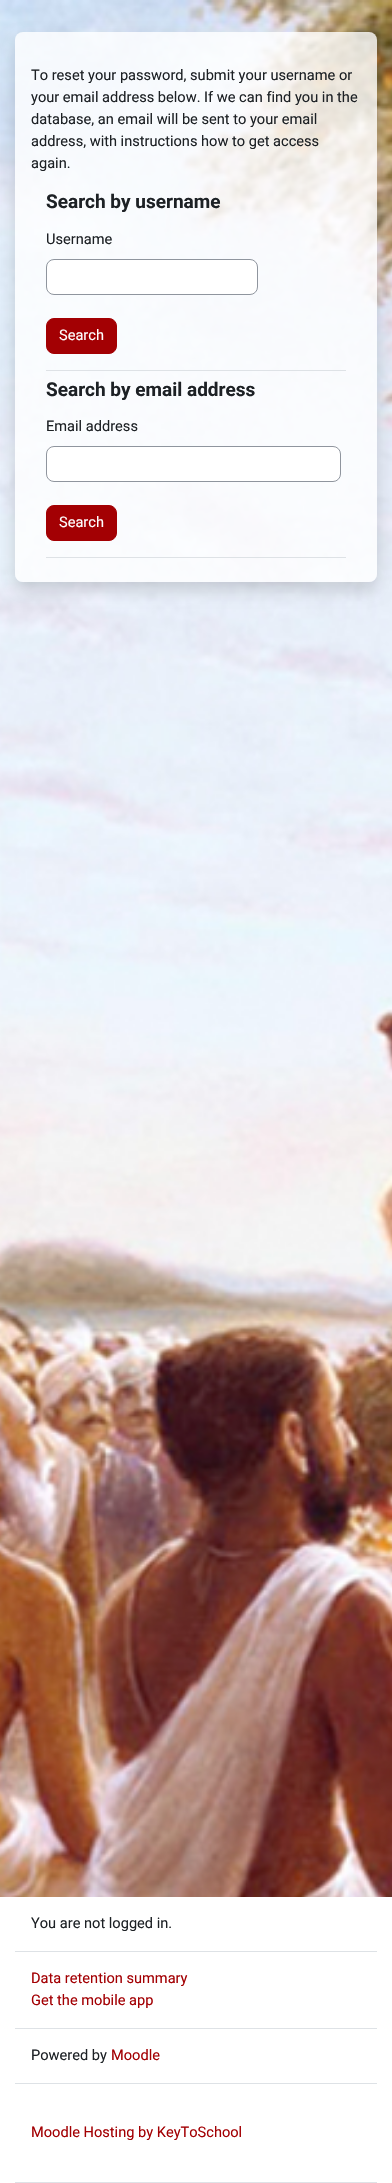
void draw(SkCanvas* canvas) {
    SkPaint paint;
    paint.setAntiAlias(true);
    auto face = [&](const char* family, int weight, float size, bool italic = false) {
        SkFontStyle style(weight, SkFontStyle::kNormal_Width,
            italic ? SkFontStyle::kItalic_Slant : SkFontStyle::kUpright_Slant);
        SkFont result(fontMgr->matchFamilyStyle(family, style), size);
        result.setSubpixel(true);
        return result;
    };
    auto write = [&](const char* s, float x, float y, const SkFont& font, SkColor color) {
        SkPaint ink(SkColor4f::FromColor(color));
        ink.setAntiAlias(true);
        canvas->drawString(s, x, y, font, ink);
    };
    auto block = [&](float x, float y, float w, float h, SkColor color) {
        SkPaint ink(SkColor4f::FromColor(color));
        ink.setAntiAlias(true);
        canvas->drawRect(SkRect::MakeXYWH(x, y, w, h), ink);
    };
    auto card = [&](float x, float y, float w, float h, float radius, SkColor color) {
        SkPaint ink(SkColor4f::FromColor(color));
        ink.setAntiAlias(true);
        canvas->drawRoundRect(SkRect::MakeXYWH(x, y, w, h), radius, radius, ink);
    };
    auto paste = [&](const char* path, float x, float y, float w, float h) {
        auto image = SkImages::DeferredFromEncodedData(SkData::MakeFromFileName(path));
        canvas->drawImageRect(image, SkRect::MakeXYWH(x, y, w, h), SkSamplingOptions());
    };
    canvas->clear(SK_ColorWHITE);
    paste("pic1.png", 0, 0, 392, 1897);
    canvas->save();
    canvas->clipPath(SkPathBuilder(SkPathFillType::kEvenOdd).moveTo(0, 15).lineTo(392, 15).lineTo(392, 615).lineTo(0, 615).close().moveTo(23, 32).lineTo(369, 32).cubicTo(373.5f, 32, 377, 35.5f, 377, 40).lineTo(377, 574).cubicTo(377, 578.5f, 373.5f, 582, 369, 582).lineTo(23, 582).cubicTo(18.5f, 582, 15, 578.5f, 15, 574).lineTo(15, 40).cubicTo(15, 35.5f, 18.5f, 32, 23, 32).close().detach(), true);
    paint.setColor(SkColorSetARGB(38, 0, 0, 0));
    paint.setMaskFilter(SkMaskFilter::MakeBlur(kNormal_SkBlurStyle, 8));
    canvas->drawRoundRect(SkRect::MakeXYWH(15, 40, 362, 550), 8, 8, paint);
    paint.setMaskFilter(nullptr);
    canvas->restore();
    card(15, 32, 362, 550, 8, SkColorSetARGB(204, 255, 255, 255));
    auto kFont1 = face("Roboto", 400, 14.6f);
    write("To reset your password, submit your username or", 31, 80, kFont1, SkColorSetRGB(29, 33, 37));
    write("your email address below. If we can find you in the", 31, 102, kFont1, SkColorSetRGB(29, 33, 37));
    write("database, an email will be sent to your email", 31, 124, kFont1, SkColorSetRGB(29, 33, 37));
    write("address, with instructions how to get access", 31, 146, kFont1, SkColorSetRGB(29, 33, 37));
    write("again.", 31, 168, kFont1, SkColorSetRGB(29, 33, 37));
    block(46, 370, 300, 1, SkColorSetRGB(222, 226, 230));
    auto kFont2 = face("Roboto", 700, 19);
    write("Search by username", 46, 208, kFont2, SkColorSetRGB(29, 33, 37));
    write("Username", 46, 244, kFont1, SkColorSetRGB(29, 33, 37));
    paint.setColor(SK_ColorWHITE);
    canvas->drawRoundRect(SkRect::MakeXYWH(46.5f, 259.5f, 211, 35), 7.5f, 7.5f, paint);
    paint.setStyle(SkPaint::kStroke_Style);
    paint.setStrokeWidth(1);
    paint.setColor(SkColorSetRGB(143, 149, 158));
    canvas->drawRoundRect(SkRect::MakeXYWH(46.5f, 259.5f, 211, 35), 7.5f, 7.5f, paint);
    paint.setStyle(SkPaint::kFill_Style);
    paint.setColor(SkColorSetRGB(163, 0, 3));
    canvas->drawRoundRect(SkRect::MakeXYWH(46.5f, 318.5f, 70, 35), 7.5f, 7.5f, paint);
    paint.setStyle(SkPaint::kStroke_Style);
    canvas->drawRoundRect(SkRect::MakeXYWH(46.5f, 318.5f, 70, 35), 7.5f, 7.5f, paint);
    write("Search", 59, 340, kFont1, SK_ColorWHITE);
    block(46, 557, 300, 1, SkColorSetRGB(222, 226, 230));
    write("Search by email address", 46, 396, kFont2, SkColorSetRGB(29, 33, 37));
    write("Email address", 46, 431, kFont1, SkColorSetRGB(29, 33, 37));
    paint.setStyle(SkPaint::kFill_Style);
    paint.setColor(SK_ColorWHITE);
    canvas->drawRoundRect(SkRect::MakeXYWH(46.5f, 446.5f, 294, 35), 7.5f, 7.5f, paint);
    paint.setStyle(SkPaint::kStroke_Style);
    paint.setColor(SkColorSetRGB(143, 149, 158));
    canvas->drawRoundRect(SkRect::MakeXYWH(46.5f, 446.5f, 294, 35), 7.5f, 7.5f, paint);
    paint.setStyle(SkPaint::kFill_Style);
    paint.setColor(SkColorSetRGB(163, 0, 3));
    canvas->drawRoundRect(SkRect::MakeXYWH(46.5f, 505.5f, 70, 35), 7.5f, 7.5f, paint);
    paint.setStyle(SkPaint::kStroke_Style);
    canvas->drawRoundRect(SkRect::MakeXYWH(46.5f, 505.5f, 70, 35), 7.5f, 7.5f, paint);
    write("Search", 59, 527, kFont1, SK_ColorWHITE);
    block(15, 1951, 362, 1, SkColorSetRGB(222, 226, 230));
    write("You are not logged in.", 31, 1928, kFont1, SkColorSetRGB(29, 33, 37));
    block(15, 2028, 362, 1, SkColorSetRGB(222, 226, 230));
    write("Data retention summary", 31, 1983, kFont1, SkColorSetRGB(163, 0, 3));
    write("Get the mobile app", 31, 2005, kFont1, SkColorSetRGB(163, 0, 3));
    block(15, 2083, 362, 1, SkColorSetRGB(222, 226, 230));
    write("Powered by", 31, 2060, kFont1, SkColorSetRGB(29, 33, 37));
    write("Moodle", 111, 2060, kFont1, SkColorSetRGB(163, 0, 3));
    block(15, 2182, 362, 1, SkColorSetRGB(222, 226, 230));
    write("Moodle Hosting by KeyToSchool", 31, 2137, kFont1, SkColorSetRGB(163, 0, 3));
}
